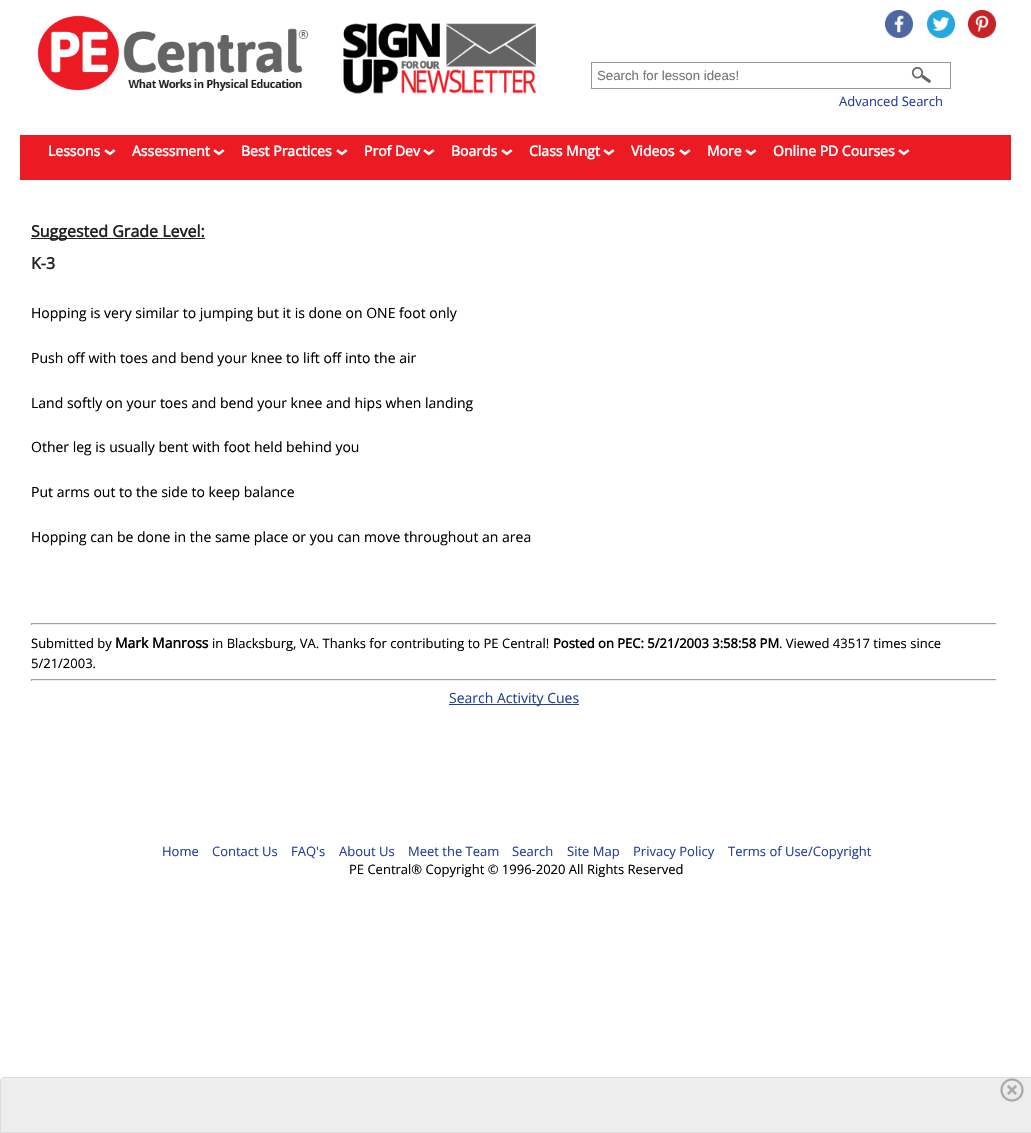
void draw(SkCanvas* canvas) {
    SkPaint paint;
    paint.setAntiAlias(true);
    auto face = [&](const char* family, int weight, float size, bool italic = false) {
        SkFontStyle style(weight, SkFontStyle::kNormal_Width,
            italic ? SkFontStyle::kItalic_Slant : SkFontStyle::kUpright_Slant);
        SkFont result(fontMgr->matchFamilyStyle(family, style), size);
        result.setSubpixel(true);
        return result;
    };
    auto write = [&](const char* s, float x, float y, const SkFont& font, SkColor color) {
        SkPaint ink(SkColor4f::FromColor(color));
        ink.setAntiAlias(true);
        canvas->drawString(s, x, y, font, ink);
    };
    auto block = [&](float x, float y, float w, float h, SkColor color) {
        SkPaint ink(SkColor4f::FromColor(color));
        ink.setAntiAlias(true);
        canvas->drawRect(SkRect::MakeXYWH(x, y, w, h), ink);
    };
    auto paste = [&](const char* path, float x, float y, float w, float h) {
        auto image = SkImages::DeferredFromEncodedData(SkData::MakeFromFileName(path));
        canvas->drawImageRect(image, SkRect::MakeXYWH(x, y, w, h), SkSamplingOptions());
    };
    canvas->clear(SK_ColorWHITE);
    paste("pic1.png", 37, 15, 272, 76);
    paste("pic2.png", 343, 23, 193, 71);
    paint.setStyle(SkPaint::kStroke_Style);
    paint.setStrokeWidth(1);
    paint.setColor(SkColorSetRGB(153, 153, 153));
    canvas->drawRect(SkRect::MakeXYWH(591.5f, 62.5f, 359, 26), paint);
    auto kFont1 = face("Liberation Sans", 400, 13.25f);
    write("Search for lesson ideas!", 597, 80, kFont1, SkColorSetRGB(117, 117, 117));
    paste("pic3.png", 911, 67, 20, 16);
    paste("pic4.png", 885, 10, 28, 28);
    paste("pic5.png", 927, 10, 28, 28);
    paste("pic6.png", 968, 10, 28, 28);
    auto kFont2 = face("Open Sans", 400, 13);
    write("Advanced Search", 839, 106, kFont2, SkColorSetRGB(34, 64, 154));
    block(20, 135, 991, 45, SkColorSetRGB(236, 27, 35));
    auto kFont3 = face("Open Sans", 700, 14);
    write("Lessons", 48, 156, kFont3, SK_ColorWHITE);
    paste("pic7.png", 104, 149, 12, 7);
    write("Assessment", 132, 156, kFont3, SK_ColorWHITE);
    paste("pic7.png", 213, 149, 12, 7);
    write("Best Practices", 241, 156, kFont3, SK_ColorWHITE);
    paste("pic7.png", 336, 149, 12, 7);
    write("Prof Dev", 364, 156, kFont3, SK_ColorWHITE);
    paste("pic7.png", 423, 149, 12, 7);
    write("Boards", 451, 156, kFont3, SK_ColorWHITE);
    paste("pic7.png", 501, 149, 12, 7);
    write("Class Mngt", 529, 156, kFont3, SK_ColorWHITE);
    paste("pic7.png", 603, 149, 12, 7);
    write("Videos", 631, 156, kFont3, SK_ColorWHITE);
    paste("pic7.png", 679, 149, 12, 7);
    write("More", 707, 156, kFont3, SK_ColorWHITE);
    paste("pic7.png", 745, 149, 12, 7);
    write("Online PD Courses", 773, 156, kFont3, SK_ColorWHITE);
    paste("pic7.png", 898, 149, 12, 7);
    block(31, 238, 174, 1, SkColorSetRGB(34, 34, 34));
    auto kFont4 = face("Open Sans", 700, 16);
    write("Suggested Grade Level:", 31, 237, kFont4, SkColorSetRGB(34, 34, 34));
    write("K-3", 31, 269, kFont4, SkColorSetRGB(34, 34, 34));
    auto kFont5 = face("Open Sans", 400, 14);
    write("Hopping is very similar to jumping but it is done on ONE foot only", 31, 318, kFont5, SK_ColorBLACK);
    write("Push off with toes and bend your knee to lift off into the air", 31, 363, kFont5, SK_ColorBLACK);
    write("Land softly on your toes and bend your knee and hips when landing", 31, 408, kFont5, SK_ColorBLACK);
    write("Other leg is usually bent with foot held behind you", 31, 452, kFont5, SK_ColorBLACK);
    write("Put arms out to the side to keep balance", 31, 497, kFont5, SK_ColorBLACK);
    write("Hopping can be done in the same place or you can move throughout an area", 31, 542, kFont5, SK_ColorBLACK);
    block(31, 623, 966, 1, SkColorSetRGB(159, 159, 159));
    block(996, 623, 1, 2, SkColorSetRGB(238, 238, 238));
    block(31, 624, 966, 1, SkColorSetRGB(238, 238, 238));
    block(31, 623, 1, 2, SkColorSetRGB(159, 159, 159));
    write("Submitted by", 31, 648, kFont2, SK_ColorBLACK);
    write("Mark Manross", 115, 648, kFont3, SK_ColorBLACK);
    write("in Blacksburg, VA. Thanks for contributing to PE Central!", 212, 648, kFont2, SK_ColorBLACK);
    auto kFont6 = face("Open Sans", 700, 13);
    write("Posted on PEC: 5/21/2003 3:58:58 PM", 553, 648, kFont6, SK_ColorBLACK);
    write(". Viewed 43517 times since", 779, 648, kFont2, SK_ColorBLACK);
    write("5/21/2003.", 31, 668, kFont2, SK_ColorBLACK);
    block(31, 679, 966, 1, SkColorSetRGB(159, 159, 159));
    block(996, 679, 1, 2, SkColorSetRGB(238, 238, 238));
    block(31, 680, 966, 1, SkColorSetRGB(238, 238, 238));
    block(31, 679, 1, 2, SkColorSetRGB(159, 159, 159));
    block(449, 704, 130, 1, SkColorSetRGB(34, 64, 154));
    write("Search Activity Cues", 449, 703, kFont5, SkColorSetRGB(34, 64, 154));
    write("Home", 162, 856, kFont2, SkColorSetRGB(34, 64, 154));
    write("Contact Us", 212, 856, kFont2, SkColorSetRGB(34, 64, 154));
    write("FAQ's", 291, 856, kFont2, SkColorSetRGB(34, 64, 154));
    write("About Us", 339, 856, kFont2, SkColorSetRGB(34, 64, 154));
    write("Meet the Team", 408, 856, kFont2, SkColorSetRGB(34, 64, 154));
    write("Search", 512, 856, kFont2, SkColorSetRGB(34, 64, 154));
    write("Site Map", 567, 856, kFont2, SkColorSetRGB(34, 64, 154));
    write("Privacy Policy", 633, 856, kFont2, SkColorSetRGB(34, 64, 154));
    write("Terms of Use/Copyright", 728, 856, kFont2, SkColorSetRGB(34, 64, 154));
    write("PE Central® Copyright © 1996-2020 All Rights Reserved", 349, 874, kFont2, SK_ColorBLACK);
    paint.setStyle(SkPaint::kFill_Style);
    paint.setColor(SkColorSetRGB(237, 237, 237));
    canvas->drawPath(SkPathBuilder().moveTo(4, 1077.5f).lineTo(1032.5f, 1077.5f).lineTo(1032.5f, 1132.5f).lineTo(0.5f, 1132.5f).lineTo(0.5f, 1081).cubicTo(0.5f, 1079, 2, 1077.5f, 4, 1077.5f).close().detach(), paint);
    paint.setStyle(SkPaint::kStroke_Style);
    paint.setColor(SkColorSetRGB(221, 221, 221));
    canvas->drawPath(SkPathBuilder().moveTo(4, 1077.5f).lineTo(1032.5f, 1077.5f).lineTo(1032.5f, 1132.5f).lineTo(0.5f, 1132.5f).lineTo(0.5f, 1081).cubicTo(0.5f, 1079, 2, 1077.5f, 4, 1077.5f).close().detach(), paint);
    paste("pic8.png", 1000, 1078, 24, 24);
}
